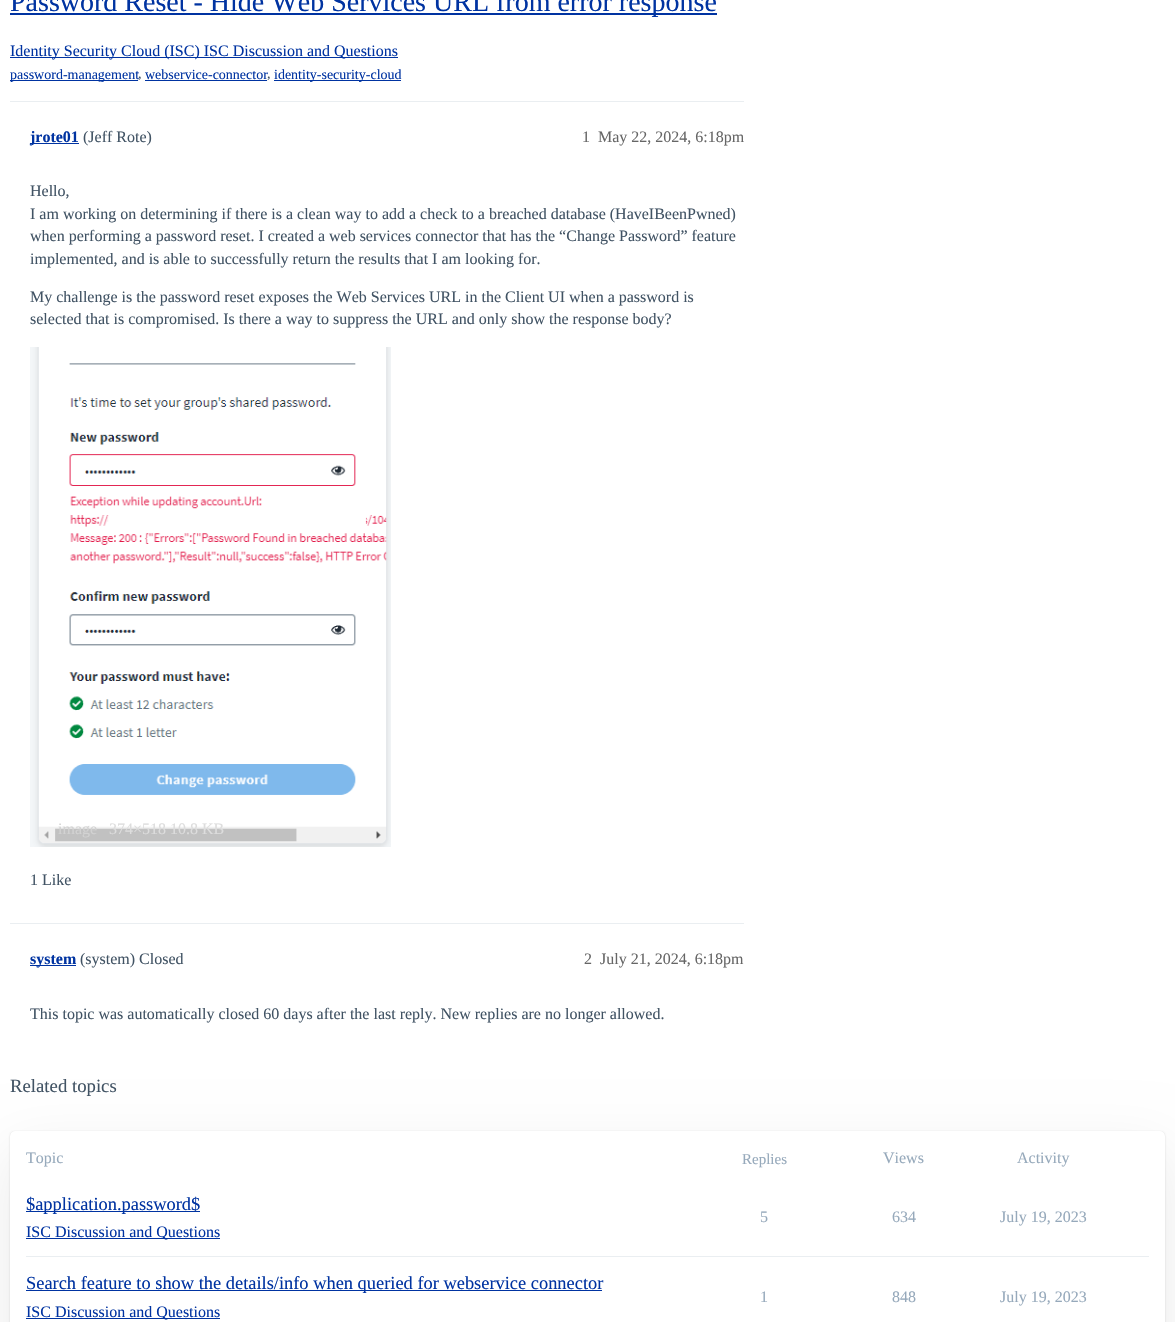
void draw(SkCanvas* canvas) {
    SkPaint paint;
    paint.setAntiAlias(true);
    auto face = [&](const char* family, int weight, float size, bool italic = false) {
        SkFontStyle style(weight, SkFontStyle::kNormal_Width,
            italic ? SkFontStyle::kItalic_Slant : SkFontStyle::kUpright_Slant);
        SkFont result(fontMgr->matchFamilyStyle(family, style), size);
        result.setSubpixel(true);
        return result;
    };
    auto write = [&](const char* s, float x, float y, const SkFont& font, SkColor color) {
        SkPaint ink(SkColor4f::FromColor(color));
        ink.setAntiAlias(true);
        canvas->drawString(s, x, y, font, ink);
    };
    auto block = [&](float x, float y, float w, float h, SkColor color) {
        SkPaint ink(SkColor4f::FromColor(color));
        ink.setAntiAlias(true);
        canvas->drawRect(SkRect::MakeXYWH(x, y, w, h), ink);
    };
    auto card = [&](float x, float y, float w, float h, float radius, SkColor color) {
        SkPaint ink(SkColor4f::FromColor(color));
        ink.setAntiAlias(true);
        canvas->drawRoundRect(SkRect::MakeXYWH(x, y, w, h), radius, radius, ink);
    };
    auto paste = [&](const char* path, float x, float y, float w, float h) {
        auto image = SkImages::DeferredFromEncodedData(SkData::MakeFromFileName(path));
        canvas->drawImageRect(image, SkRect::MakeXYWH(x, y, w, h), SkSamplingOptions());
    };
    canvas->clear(SK_ColorWHITE);
    block(10, 13, 707, 2, SkColorSetRGB(0, 51, 161));
    auto kFont1 = face("Liberation Serif", 400, 28);
    write("Password Reset - Hide Web Services URL from error response", 10, 11, kFont1, SkColorSetRGB(0, 51, 161));
    block(10, 57, 388, 1, SkColorSetRGB(0, 51, 161));
    auto kFont2 = face("Liberation Serif", 400, 16);
    write("Identity Security Cloud (ISC) ISC Discussion and Questions", 10, 56, kFont2, SkColorSetRGB(0, 51, 161));
    block(10, 80, 128, 1, SkColorSetRGB(0, 51, 161));
    auto kFont3 = face("Liberation Serif", 400, 14);
    write("password-management", 10, 79, kFont3, SkColorSetRGB(0, 51, 161));
    write(",", 138, 78, kFont3, SkColorSetRGB(65, 83, 100));
    write("webservice-connector", 145, 79, kFont3, SkColorSetRGB(0, 51, 161));
    block(145, 80, 122, 1, SkColorSetRGB(0, 51, 161));
    write(",", 267, 78, kFont3, SkColorSetRGB(65, 83, 100));
    block(274, 80, 127, 1, SkColorSetRGB(0, 51, 161));
    write("identity-security-cloud", 274, 79, kFont3, SkColorSetRGB(0, 51, 161));
    block(10, 101, 734, 1, SkColorSetRGB(234, 238, 241));
    block(30, 143, 49, 1, SkColorSetRGB(0, 51, 161));
    auto kFont4 = face("Liberation Serif", 700, 16);
    write("jrote01", 30, 142, kFont4, SkColorSetRGB(0, 51, 161));
    write("(Jeff Rote)", 83, 142, kFont2, SkColorSetRGB(65, 83, 100));
    write("1", 582, 142, kFont2, SkColorSetRGB(102, 102, 102));
    write("May 22, 2024, 6:18pm", 598, 142, kFont2, SkColorSetRGB(102, 102, 102));
    write("Hello,", 30, 196, kFont2, SkColorSetRGB(65, 83, 100));
    write("I am working on determining if there is a clean way to add a check to a breached database (HaveIBeenPwned)", 30, 219, kFont2, SkColorSetRGB(65, 83, 100));
    write("when performing a password reset. I created a web services connector that has the “Change Password” feature", 30, 241, kFont2, SkColorSetRGB(65, 83, 100));
    write("implemented, and is able to successfully return the results that I am looking for.", 30, 264, kFont2, SkColorSetRGB(65, 83, 100));
    write("My challenge is the password reset exposes the Web Services URL in the Client UI when a password is", 30, 302, kFont2, SkColorSetRGB(65, 83, 100));
    write("selected that is compromised. Is there a way to suppress the URL and only show the response body?", 30, 324, kFont2, SkColorSetRGB(65, 83, 100));
    paste("pic1.png", 30, 347, 361, 500);
    write("image", 58, 834, kFont2, SkColorSetRGB(210, 210, 210));
    write("374×518 10.8 KB", 109, 834, kFont2, SkColorSetRGB(221, 221, 221));
    write("1 Like", 30, 885, kFont2, SkColorSetRGB(65, 83, 100));
    block(10, 923, 734, 1, SkColorSetRGB(234, 238, 241));
    block(30, 965, 46, 1, SkColorSetRGB(0, 51, 161));
    write("system", 30, 964, kFont4, SkColorSetRGB(0, 51, 161));
    write("(system) Closed", 80, 964, kFont2, SkColorSetRGB(65, 83, 100));
    write("2", 584, 964, kFont2, SkColorSetRGB(102, 102, 102));
    write("July 21, 2024, 6:18pm", 600, 964, kFont2, SkColorSetRGB(102, 102, 102));
    write("This topic was automatically closed 60 days after the last reply. New replies are no longer allowed.", 30, 1019, kFont2, SkColorSetRGB(65, 83, 100));
    auto kFont5 = face("Liberation Serif", 400, 18.75f);
    write("Related topics", 10, 1092, kFont5, SkColorSetRGB(65, 83, 100));
    paint.setColor(SkColorSetARGB(20, 0, 0, 0));
    paint.setMaskFilter(SkMaskFilter::MakeBlur(kNormal_SkBlurStyle, 30));
    canvas->drawRoundRect(SkRect::MakeXYWH(10, 1151, 1155, 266), 5, 5, paint);
    paint.setMaskFilter(nullptr);
    paint.setColor(SkColorSetARGB(26, 0, 0, 0));
    paint.setMaskFilter(SkMaskFilter::MakeBlur(kNormal_SkBlurStyle, 1));
    canvas->drawRoundRect(SkRect::MakeXYWH(10, 1132, 1155, 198), 5, 5, paint);
    paint.setMaskFilter(nullptr);
    paint.setMaskFilter(SkMaskFilter::MakeBlur(kNormal_SkBlurStyle, 0.5f));
    canvas->drawRoundRect(SkRect::MakeXYWH(10, 1131, 1155, 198), 5, 5, paint);
    paint.setMaskFilter(nullptr);
    card(10, 1131, 1155, 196, 5, SK_ColorWHITE);
    write("Topic", 26, 1163, kFont2, SkColorSetRGB(150, 169, 187));
    auto kFont6 = face("Liberation Serif", 400, 15);
    write("Replies", 742, 1164, kFont6, SkColorSetRGB(150, 169, 187));
    write("Views", 883, 1163, kFont2, SkColorSetRGB(150, 169, 187));
    write("Activity", 1017, 1163, kFont2, SkColorSetRGB(150, 169, 187));
    block(26, 1256, 1123, 1, SkColorSetRGB(234, 238, 241));
    block(26, 1211, 174, 1, SkColorSetRGB(0, 51, 161));
    auto kFont7 = face("Liberation Serif", 400, 18.4f);
    write("$application.password$", 26, 1210, kFont7, SkColorSetRGB(0, 51, 161));
    block(26, 1238, 194, 1, SkColorSetRGB(0, 51, 161));
    write("ISC Discussion and Questions", 26, 1237, kFont2, SkColorSetRGB(0, 51, 161));
    write("5", 760, 1222, kFont2, SkColorSetRGB(150, 169, 187));
    write("634", 892, 1222, kFont2, SkColorSetRGB(150, 169, 187));
    write("July 19, 2023", 1000, 1222, kFont2, SkColorSetRGB(150, 169, 187));
    block(26, 1290, 576, 1, SkColorSetRGB(0, 51, 161));
    write("Search feature to show the details/info when queried for webservice connector", 26, 1289, kFont7, SkColorSetRGB(0, 51, 161));
    block(26, 1318, 194, 1, SkColorSetRGB(0, 51, 161));
    write("ISC Discussion and Questions", 26, 1317, kFont2, SkColorSetRGB(0, 51, 161));
    write("1", 760, 1302, kFont2, SkColorSetRGB(150, 169, 187));
    write("848", 892, 1302, kFont2, SkColorSetRGB(150, 169, 187));
    write("July 19, 2023", 1000, 1302, kFont2, SkColorSetRGB(150, 169, 187));
}
